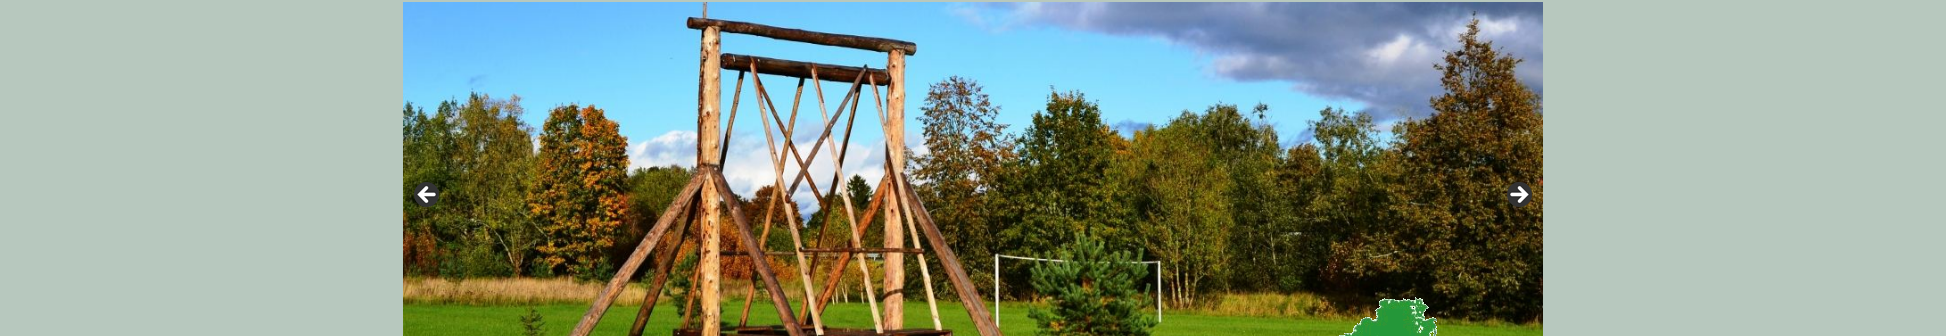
void draw(SkCanvas* canvas) {
    SkPaint paint;
    paint.setAntiAlias(true);
    auto paste = [&](const char* path, float x, float y, float w, float h) {
        auto image = SkImages::DeferredFromEncodedData(SkData::MakeFromFileName(path));
        canvas->drawImageRect(image, SkRect::MakeXYWH(x, y, w, h), SkSamplingOptions());
    };
    canvas->clear(SkColorSetRGB(183, 200, 190));
    paste("pic1.png", 403, 2, 1140, 334);
    paste("pic2.png", 414, 182, 25, 25);
    paste("pic3.png", 1507, 182, 25, 25);
    paste("pic4.png", 1339, 297, 98, 39);
}
